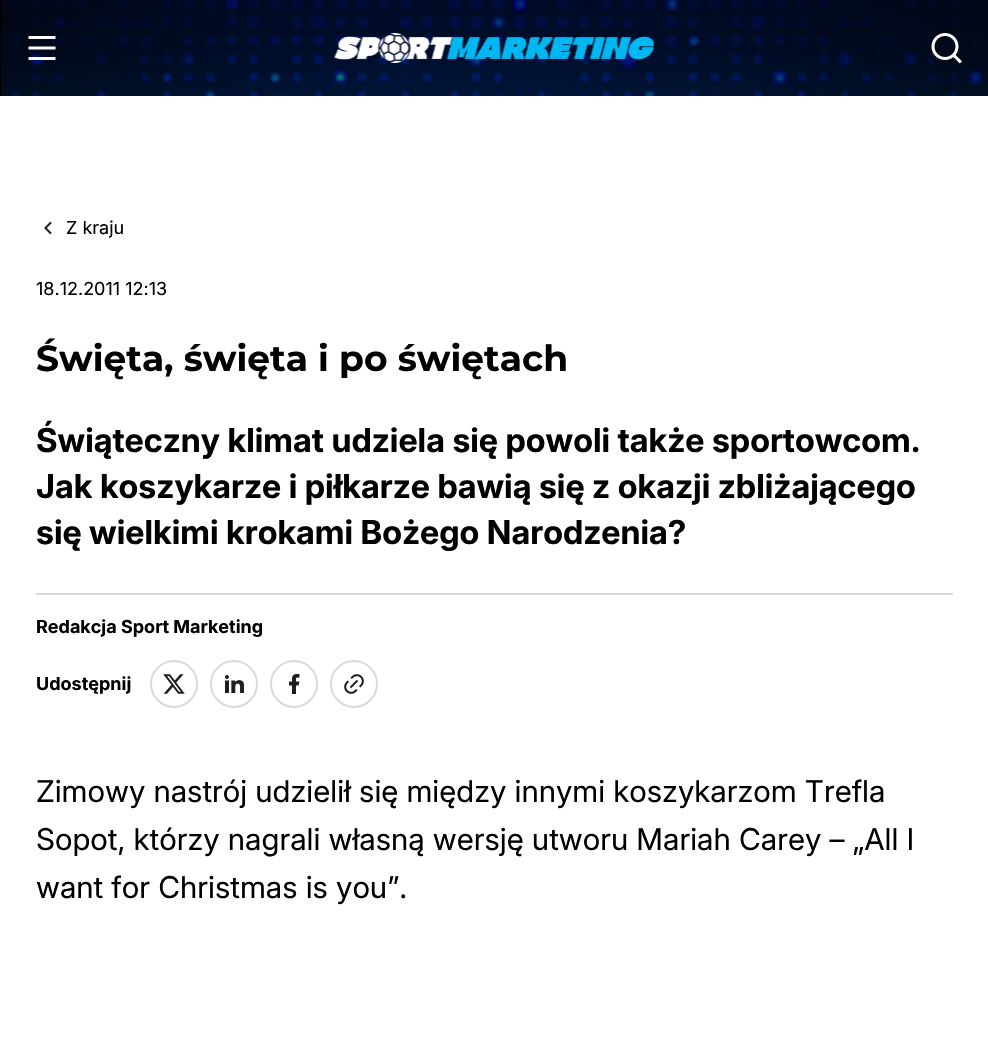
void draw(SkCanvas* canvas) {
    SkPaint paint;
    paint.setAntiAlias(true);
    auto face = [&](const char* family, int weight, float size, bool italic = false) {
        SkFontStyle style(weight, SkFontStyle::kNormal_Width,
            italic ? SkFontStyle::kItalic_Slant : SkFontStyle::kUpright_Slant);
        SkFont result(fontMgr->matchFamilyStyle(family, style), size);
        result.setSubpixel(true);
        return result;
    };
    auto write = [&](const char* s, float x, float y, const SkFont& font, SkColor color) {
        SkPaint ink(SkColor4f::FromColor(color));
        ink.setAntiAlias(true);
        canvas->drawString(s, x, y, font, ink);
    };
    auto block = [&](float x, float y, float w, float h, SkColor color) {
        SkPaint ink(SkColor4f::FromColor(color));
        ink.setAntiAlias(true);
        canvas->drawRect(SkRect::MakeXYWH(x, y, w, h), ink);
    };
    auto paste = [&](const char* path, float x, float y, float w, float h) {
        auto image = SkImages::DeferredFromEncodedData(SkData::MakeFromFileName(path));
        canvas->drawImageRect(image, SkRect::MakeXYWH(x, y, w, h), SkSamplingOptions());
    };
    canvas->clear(SK_ColorWHITE);
    paste("pic1.png", 0, 0, 988, 96);
    paste("pic2.png", 28, 36, 28, 24);
    paste("pic3.png", 334, 33, 320, 30);
    paste("pic4.png", 931, 33, 31, 31);
    paste("pic5.png", 44, 221, 8, 14);
    auto kFont1 = face("Inter", 400, 18);
    write("Z kraju", 66, 234, kFont1, SK_ColorBLACK);
    write("18.12.2011 12:13", 36, 295, kFont1, SK_ColorBLACK);
    auto kFont2 = face("Montserrat", 700, 36);
    write("Święta, święta i po świętach", 36, 371, kFont2, SK_ColorBLACK);
    auto kFont3 = face("Inter", 700, 33);
    write("Świąteczny klimat udziela się powoli także sportowcom.", 36, 452, kFont3, SK_ColorBLACK);
    write("Jak koszykarze i piłkarze bawią się z okazji zbliżającego", 36, 498, kFont3, SK_ColorBLACK);
    write("się wielkimi krokami Bożego Narodzenia?", 36, 544, kFont3, SK_ColorBLACK);
    block(36, 593, 917, 2, SkColorSetRGB(218, 218, 218));
    auto kFont4 = face("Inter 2", 700, 18);
    write("Redakcja Sport Marketing", 36, 633, kFont4, SK_ColorBLACK);
    write("Udostępnij", 36, 690, kFont4, SK_ColorBLACK);
    paint.setStyle(SkPaint::kStroke_Style);
    paint.setStrokeWidth(2);
    paint.setColor(SkColorSetRGB(218, 218, 218));
    canvas->drawCircle(174, 684, 23, paint);
    paste("pic6.png", 163, 674, 22, 20);
    canvas->drawCircle(234, 684, 23, paint);
    paste("pic7.png", 225, 675, 19, 18);
    canvas->drawCircle(294, 684, 23, paint);
    paste("pic8.png", 289, 674, 11, 20);
    canvas->drawCircle(354, 684, 23, paint);
    paste("pic9.png", 344, 674, 20, 20);
    auto kFont5 = face("Inter 2", 400, 30);
    write("Zimowy nastrój udzielił się między innymi koszykarzom Trefla", 36, 802, kFont5, SK_ColorBLACK);
    write("Sopot, którzy nagrali własną wersję utworu Mariah Carey – „All I", 36, 850, kFont5, SK_ColorBLACK);
    write("want for Christmas is you”.", 36, 898, kFont5, SK_ColorBLACK);
}
